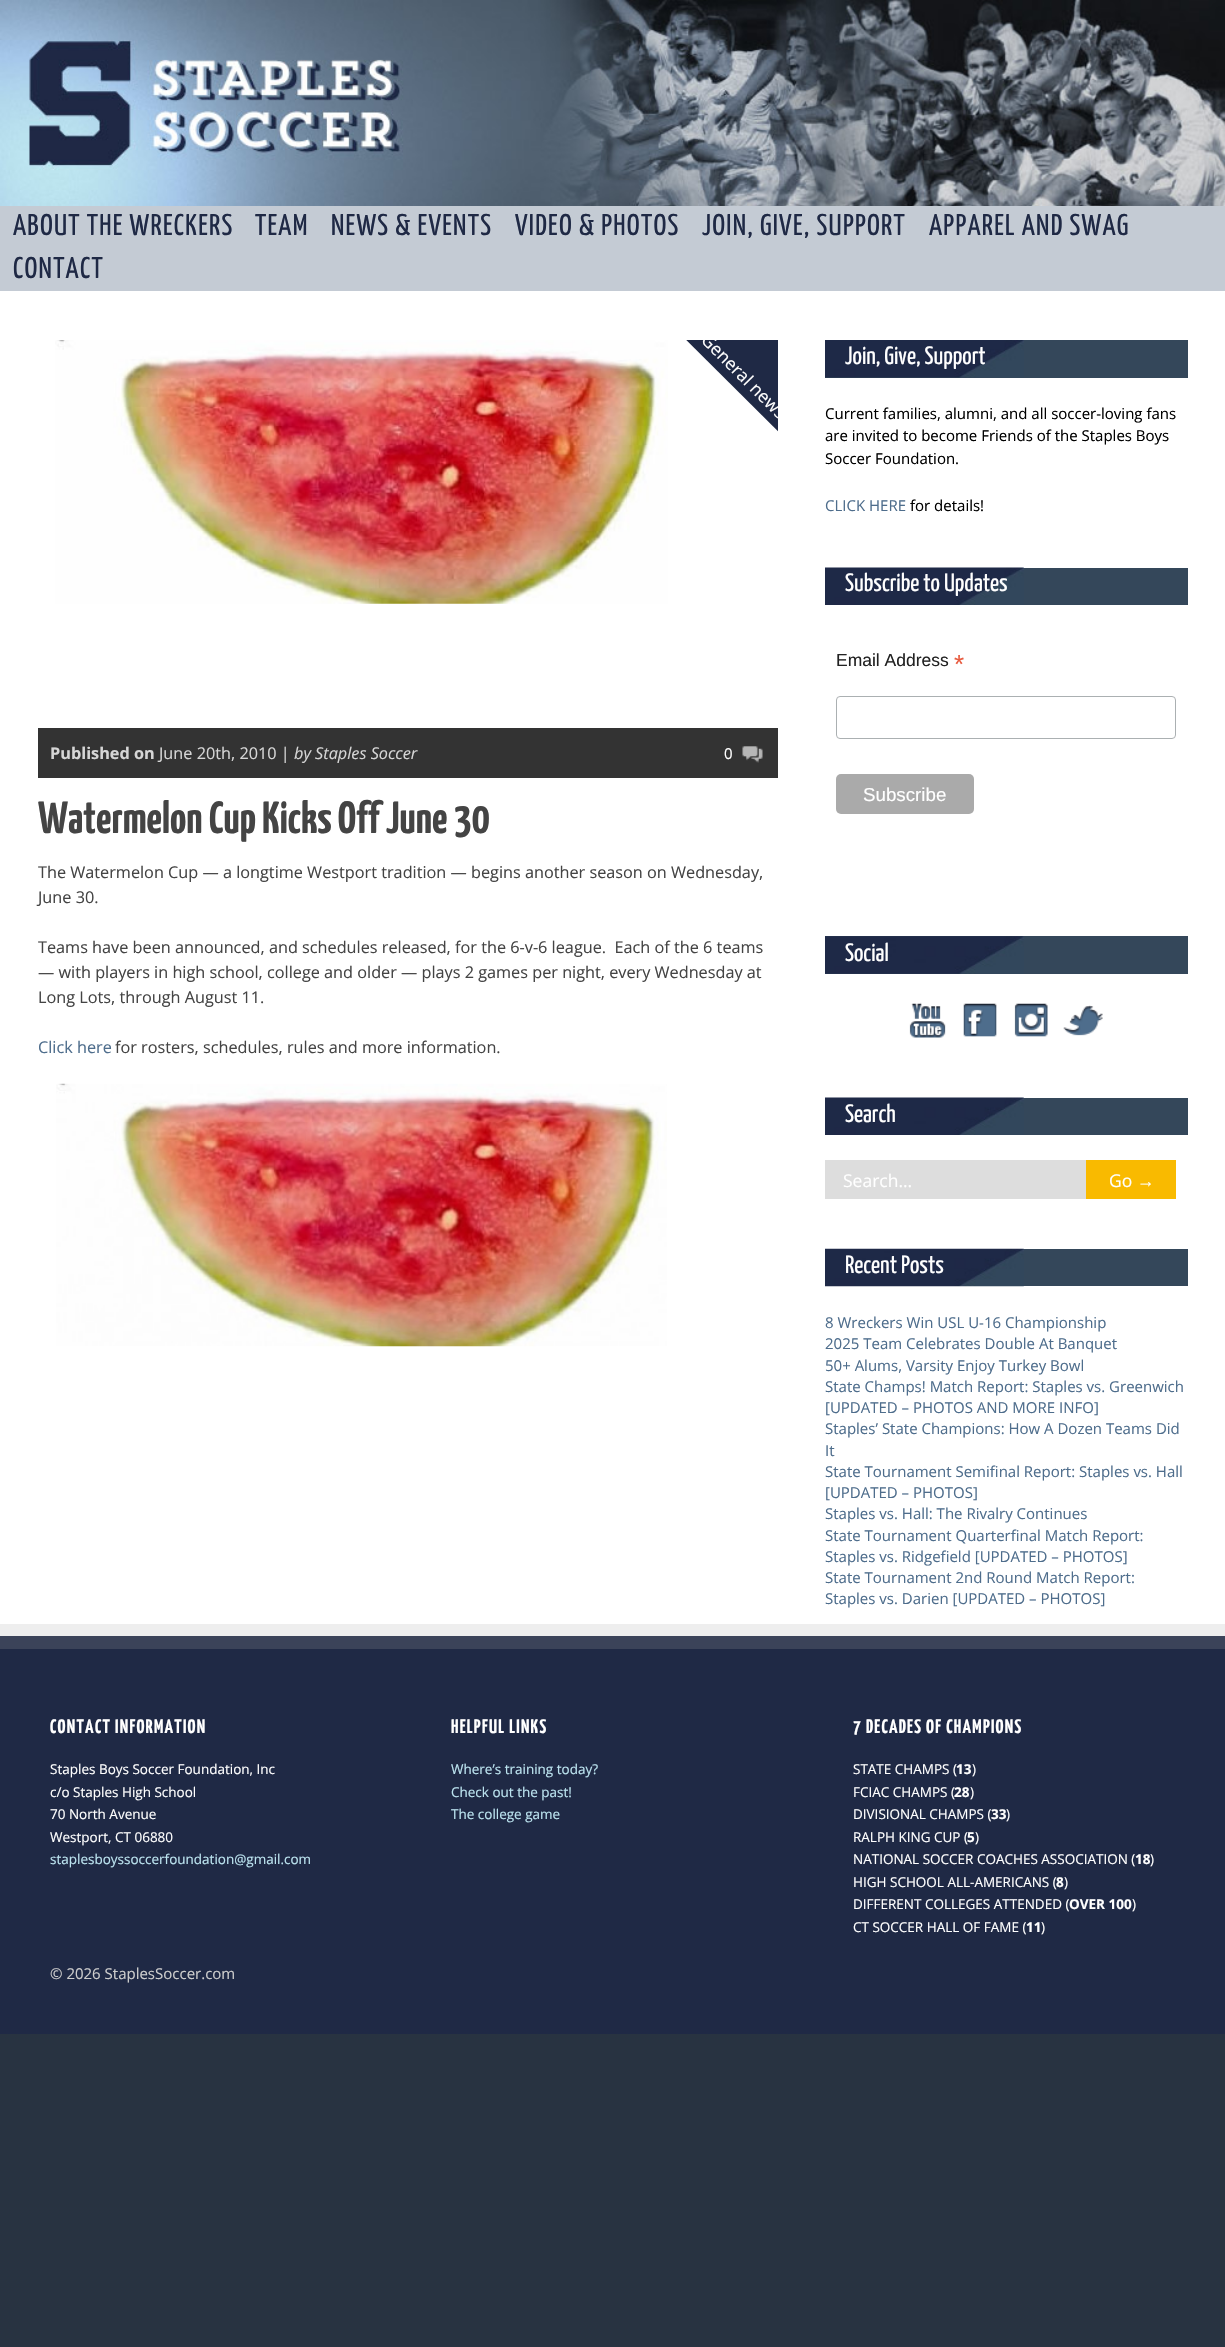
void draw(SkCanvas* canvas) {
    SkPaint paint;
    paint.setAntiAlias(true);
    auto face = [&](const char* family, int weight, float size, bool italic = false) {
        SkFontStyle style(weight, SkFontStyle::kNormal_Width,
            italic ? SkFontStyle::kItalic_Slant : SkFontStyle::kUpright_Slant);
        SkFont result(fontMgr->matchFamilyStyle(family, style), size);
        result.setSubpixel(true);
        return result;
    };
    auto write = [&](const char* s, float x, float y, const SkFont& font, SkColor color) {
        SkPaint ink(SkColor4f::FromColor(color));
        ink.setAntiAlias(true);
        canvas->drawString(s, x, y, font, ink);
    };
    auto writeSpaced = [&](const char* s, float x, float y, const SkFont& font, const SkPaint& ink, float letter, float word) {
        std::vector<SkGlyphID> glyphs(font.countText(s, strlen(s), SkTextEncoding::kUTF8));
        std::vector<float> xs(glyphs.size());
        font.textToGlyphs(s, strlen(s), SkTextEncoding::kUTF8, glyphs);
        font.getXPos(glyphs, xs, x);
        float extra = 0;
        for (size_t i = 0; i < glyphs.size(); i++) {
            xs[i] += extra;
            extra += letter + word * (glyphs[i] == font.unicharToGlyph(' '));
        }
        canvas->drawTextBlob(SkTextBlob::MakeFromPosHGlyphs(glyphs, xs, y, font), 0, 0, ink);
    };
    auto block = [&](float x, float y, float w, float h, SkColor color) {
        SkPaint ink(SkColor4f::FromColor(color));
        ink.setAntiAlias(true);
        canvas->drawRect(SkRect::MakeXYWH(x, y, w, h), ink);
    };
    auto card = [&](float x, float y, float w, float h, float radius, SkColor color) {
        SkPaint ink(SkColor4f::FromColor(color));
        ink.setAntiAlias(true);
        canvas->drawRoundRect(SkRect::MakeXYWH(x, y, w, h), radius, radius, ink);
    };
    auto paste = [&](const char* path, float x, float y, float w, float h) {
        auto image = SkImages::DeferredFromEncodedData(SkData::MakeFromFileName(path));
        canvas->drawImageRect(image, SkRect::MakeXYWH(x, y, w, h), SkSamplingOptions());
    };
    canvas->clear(SkColorSetRGB(40, 51, 65));
    block(0, 291, 1225, 1333, SK_ColorWHITE);
    block(0, 1624, 1225, 12, SkColorSetRGB(238, 238, 238));
    paste("pic1.png", 0, 0, 1225, 206);
    block(0, 206, 1225, 85, SkColorSetRGB(196, 203, 212));
    auto kFont1 = face("Yanone Kaffeesatz", 400, 30);
    paint.setColor(SkColorSetRGB(31, 41, 69));
    writeSpaced("ABOUT THE WRECKERS", 13, 235, kFont1, paint, 1.25f, 0);
    writeSpaced("TEAM", 255, 235, kFont1, paint, 1.25f, 0);
    writeSpaced("NEWS & EVENTS", 331, 235, kFont1, paint, 1.25f, 0);
    writeSpaced("VIDEO & PHOTOS", 515, 235, kFont1, paint, 1.25f, 0);
    writeSpaced("JOIN, GIVE, SUPPORT", 702, 235, kFont1, paint, 1.25f, 0);
    writeSpaced("APPAREL AND SWAG", 929, 235, kFont1, paint, 1.25f, 0);
    writeSpaced("CONTACT", 13, 278, kFont1, paint, 1.25f, 0);
    paste("pic2.png", 55, 340, 613, 264);
    canvas->save();
    canvas->clipRect(SkRect::MakeXYWH(38, 340, 740, 438));
    canvas->drawPath(SkPathBuilder().moveTo(726, 217).lineTo(903, 394).lineTo(822, 475).lineTo(645, 299).close().detach(), paint);
    auto kFont2 = face("Open Sans", 400, 17.5f);
    canvas->save();
    canvas->rotate(45, 700, 341);
    write("General news", 700, 341, kFont2, SK_ColorWHITE);
    canvas->restore();
    canvas->restore();
    block(38, 728, 740, 50, SkColorSetRGB(51, 51, 51));
    auto kFont3 = face("Open Sans", 700, 16.25f);
    write("Published on", 50, 759, kFont3, SkColorSetRGB(214, 214, 214));
    auto kFont4 = face("Open Sans", 400, 16.25f);
    write("June 20th, 2010 |", 159, 759, kFont4, SkColorSetRGB(214, 214, 214));
    auto kFont5 = face("Open Sans", 400, 16.25f, true);
    write("by Staples Soccer", 294, 759, kFont5, SkColorSetRGB(214, 214, 214));
    paste("pic3.png", 742, 746, 21, 17);
    auto kFont6 = face("Open Sans", 400, 15);
    write("0", 724, 759, kFont6, SK_ColorWHITE);
    auto kFont7 = face("Yanone Kaffeesatz", 700, 45);
    write("Watermelon Cup Kicks Off June 30", 38, 833, kFont7, SkColorSetRGB(68, 68, 68));
    write("The Watermelon Cup — a longtime Westport tradition — begins another season on Wednesday,", 38, 878, kFont4, SkColorSetRGB(68, 68, 68));
    write("June 30.", 38, 903, kFont4, SkColorSetRGB(68, 68, 68));
    write("Teams have been announced, and schedules released, for the 6-v-6 league.  Each of the 6 teams", 38, 953, kFont4, SkColorSetRGB(68, 68, 68));
    write("— with players in high school, college and older — plays 2 games per night, every Wednesday at", 38, 978, kFont4, SkColorSetRGB(68, 68, 68));
    write("Long Lots, through August 11.", 38, 1003, kFont4, SkColorSetRGB(68, 68, 68));
    write("Click here", 38, 1053, kFont4, SkColorSetRGB(78, 109, 140));
    write("for rosters, schedules, rules and more information.", 115, 1053, kFont4, SkColorSetRGB(68, 68, 68));
    paste("pic4.png", 56, 1083, 611, 264);
    block(825, 340, 363, 38, SkColorSetRGB(52, 71, 90));
    paste("pic5.png", 825, 340, 199, 38);
    auto kFont8 = face("Yanone Kaffeesatz", 400, 25);
    write("Join, Give, Support", 845, 364, kFont8, SK_ColorWHITE);
    write("Current families, alumni, and all soccer-loving fans", 825, 419, kFont6, SK_ColorBLACK);
    write("are invited to become Friends of the Staples Boys", 825, 441, kFont6, SK_ColorBLACK);
    write("Soccer Foundation.", 825, 464, kFont6, SK_ColorBLACK);
    write("CLICK HERE", 825, 511, kFont6, SkColorSetRGB(78, 109, 140));
    write("for details!", 910, 511, kFont6, SK_ColorBLACK);
    block(1023, 568, 165, 37, SkColorSetRGB(52, 71, 90));
    paste("pic6.png", 825, 567, 199, 38);
    write("Subscribe to Updates", 845, 591, kFont8, SK_ColorWHITE);
    auto kFont9 = face("Liberation Sans", 400, 17.5f);
    write("Email Address", 836, 666, kFont9, SkColorSetRGB(34, 34, 34));
    auto kFont10 = face("Liberation Sans", 400, 26);
    write("*", 954, 673, kFont10, SkColorSetRGB(232, 92, 65));
    paint.setStyle(SkPaint::kStroke_Style);
    paint.setStrokeWidth(1);
    paint.setColor(SkColorSetRGB(171, 176, 178));
    canvas->drawRoundRect(SkRect::MakeXYWH(836.5f, 696.5f, 339, 42), 3.5f, 3.5f, paint);
    card(836, 774, 138, 40, 5, SkColorSetRGB(170, 170, 170));
    auto kFont11 = face("Liberation Sans", 400, 18.75f);
    write("Subscribe", 863, 801, kFont11, SK_ColorWHITE);
    block(825, 936, 363, 38, SkColorSetRGB(52, 71, 90));
    paste("pic7.png", 825, 936, 199, 38);
    write("Social", 845, 961, kFont8, SK_ColorWHITE);
    paste("pic8.png", 909, 1002, 194, 36);
    block(1023, 1098, 165, 37, SkColorSetRGB(52, 71, 90));
    paste("pic9.png", 825, 1097, 199, 38);
    write("Search", 845, 1122, kFont8, SK_ColorWHITE);
    block(825, 1160, 261, 39, SkColorSetRGB(221, 221, 221));
    write("Search...", 843, 1187, kFont2, SK_ColorWHITE);
    block(1086, 1160, 90, 39, SkColorSetRGB(249, 186, 0));
    write("Go", 1109, 1187, kFont2, SK_ColorWHITE);
    write("→", 1137, 1187, kFont9, SK_ColorWHITE);
    block(1023, 1249, 165, 37, SkColorSetRGB(52, 71, 90));
    paste("pic10.png", 825, 1248, 199, 39);
    write("Recent Posts", 845, 1273, kFont8, SK_ColorWHITE);
    write("8 Wreckers Win USL U-16 Championship", 825, 1328, kFont6, SkColorSetRGB(78, 109, 140));
    write("2025 Team Celebrates Double At Banquet", 825, 1349, kFont6, SkColorSetRGB(78, 109, 140));
    write("50+ Alums, Varsity Enjoy Turkey Bowl", 825, 1371, kFont6, SkColorSetRGB(78, 109, 140));
    write("State Champs! Match Report: Staples vs. Greenwich", 825, 1392, kFont6, SkColorSetRGB(78, 109, 140));
    write("[UPDATED – PHOTOS AND MORE INFO]", 825, 1413, kFont6, SkColorSetRGB(78, 109, 140));
    write("Staples’ State Champions: How A Dozen Teams Did", 825, 1434, kFont6, SkColorSetRGB(78, 109, 140));
    write("It", 825, 1456, kFont6, SkColorSetRGB(78, 109, 140));
    write("State Tournament Semifinal Report: Staples vs. Hall", 825, 1477, kFont6, SkColorSetRGB(78, 109, 140));
    write("[UPDATED – PHOTOS]", 825, 1498, kFont6, SkColorSetRGB(78, 109, 140));
    write("Staples vs. Hall: The Rivalry Continues", 825, 1519, kFont6, SkColorSetRGB(78, 109, 140));
    write("State Tournament Quarterfinal Match Report:", 825, 1541, kFont6, SkColorSetRGB(78, 109, 140));
    write("Staples vs. Ridgefield [UPDATED – PHOTOS]", 825, 1562, kFont6, SkColorSetRGB(78, 109, 140));
    write("State Tournament 2nd Round Match Report:", 825, 1583, kFont6, SkColorSetRGB(78, 109, 140));
    write("Staples vs. Darien [UPDATED – PHOTOS]", 825, 1604, kFont6, SkColorSetRGB(78, 109, 140));
    block(0, 1649, 1225, 385, SkColorSetRGB(31, 41, 69));
    block(0, 1636, 1225, 13, SkColorSetRGB(59, 67, 89));
    auto kFont12 = face("Yanone Kaffeesatz", 700, 19.5f);
    paint.setStyle(SkPaint::kFill_Style);
    paint.setColor(SK_ColorWHITE);
    writeSpaced("CONTACT INFORMATION", 50, 1733, kFont12, paint, 1.25f, 0);
    auto kFont13 = face("Open Sans", 400, 13.5f);
    write("Staples Boys Soccer Foundation, Inc", 50, 1774, kFont13, SK_ColorWHITE);
    write("c/o Staples High School", 50, 1797, kFont13, SK_ColorWHITE);
    write("70 North Avenue", 50, 1819, kFont13, SK_ColorWHITE);
    write("Westport, CT 06880", 50, 1842, kFont13, SK_ColorWHITE);
    write("staplesboyssoccerfoundation@gmail.com", 50, 1864, kFont13, SkColorSetRGB(187, 227, 239));
    writeSpaced("HELPFUL LINKS", 451, 1733, kFont12, paint, 1.25f, 0);
    write("Where’s training today?", 451, 1774, kFont13, SkColorSetRGB(187, 227, 239));
    write("Check out the past!", 451, 1797, kFont13, SkColorSetRGB(187, 227, 239));
    write("The college game", 451, 1819, kFont13, SkColorSetRGB(187, 227, 239));
    writeSpaced("7 DECADES OF CHAMPIONS", 853, 1733, kFont12, paint, 1.25f, 0);
    write("STATE CHAMPS (", 853, 1774, kFont13, SK_ColorWHITE);
    auto kFont14 = face("Open Sans", 700, 13.5f);
    write("13", 956, 1774, kFont14, SK_ColorWHITE);
    write(")", 972, 1774, kFont13, SK_ColorWHITE);
    write("FCIAC CHAMPS (", 853, 1797, kFont13, SK_ColorWHITE);
    write("28", 954, 1797, kFont14, SK_ColorWHITE);
    write(")", 970, 1797, kFont13, SK_ColorWHITE);
    write("DIVISIONAL CHAMPS (", 853, 1819, kFont13, SK_ColorWHITE);
    write("33", 991, 1819, kFont14, SK_ColorWHITE);
    write(")", 1006, 1819, kFont13, SK_ColorWHITE);
    write("RALPH KING CUP (", 853, 1842, kFont13, SK_ColorWHITE);
    write("5", 967, 1842, kFont14, SK_ColorWHITE);
    write(")", 975, 1842, kFont13, SK_ColorWHITE);
    write("NATIONAL SOCCER COACHES ASSOCIATION (", 853, 1864, kFont13, SK_ColorWHITE);
    write("18", 1135, 1864, kFont14, SK_ColorWHITE);
    write(")", 1150, 1864, kFont13, SK_ColorWHITE);
    write("HIGH SCHOOL ALL-AMERICANS (", 853, 1887, kFont13, SK_ColorWHITE);
    write("8", 1056, 1887, kFont14, SK_ColorWHITE);
    write(")", 1064, 1887, kFont13, SK_ColorWHITE);
    write("DIFFERENT COLLEGES ATTENDED (", 853, 1909, kFont13, SK_ColorWHITE);
    write("OVER 100", 1069, 1909, kFont14, SK_ColorWHITE);
    write(")", 1132, 1909, kFont13, SK_ColorWHITE);
    write("CT SOCCER HALL OF FAME (", 853, 1932, kFont13, SK_ColorWHITE);
    write("11", 1026, 1932, kFont14, SK_ColorWHITE);
    write(")", 1041, 1932, kFont13, SK_ColorWHITE);
    write("© 2026 StaplesSoccer.com", 50, 1979, kFont6, SkColorSetRGB(204, 204, 204));
}
